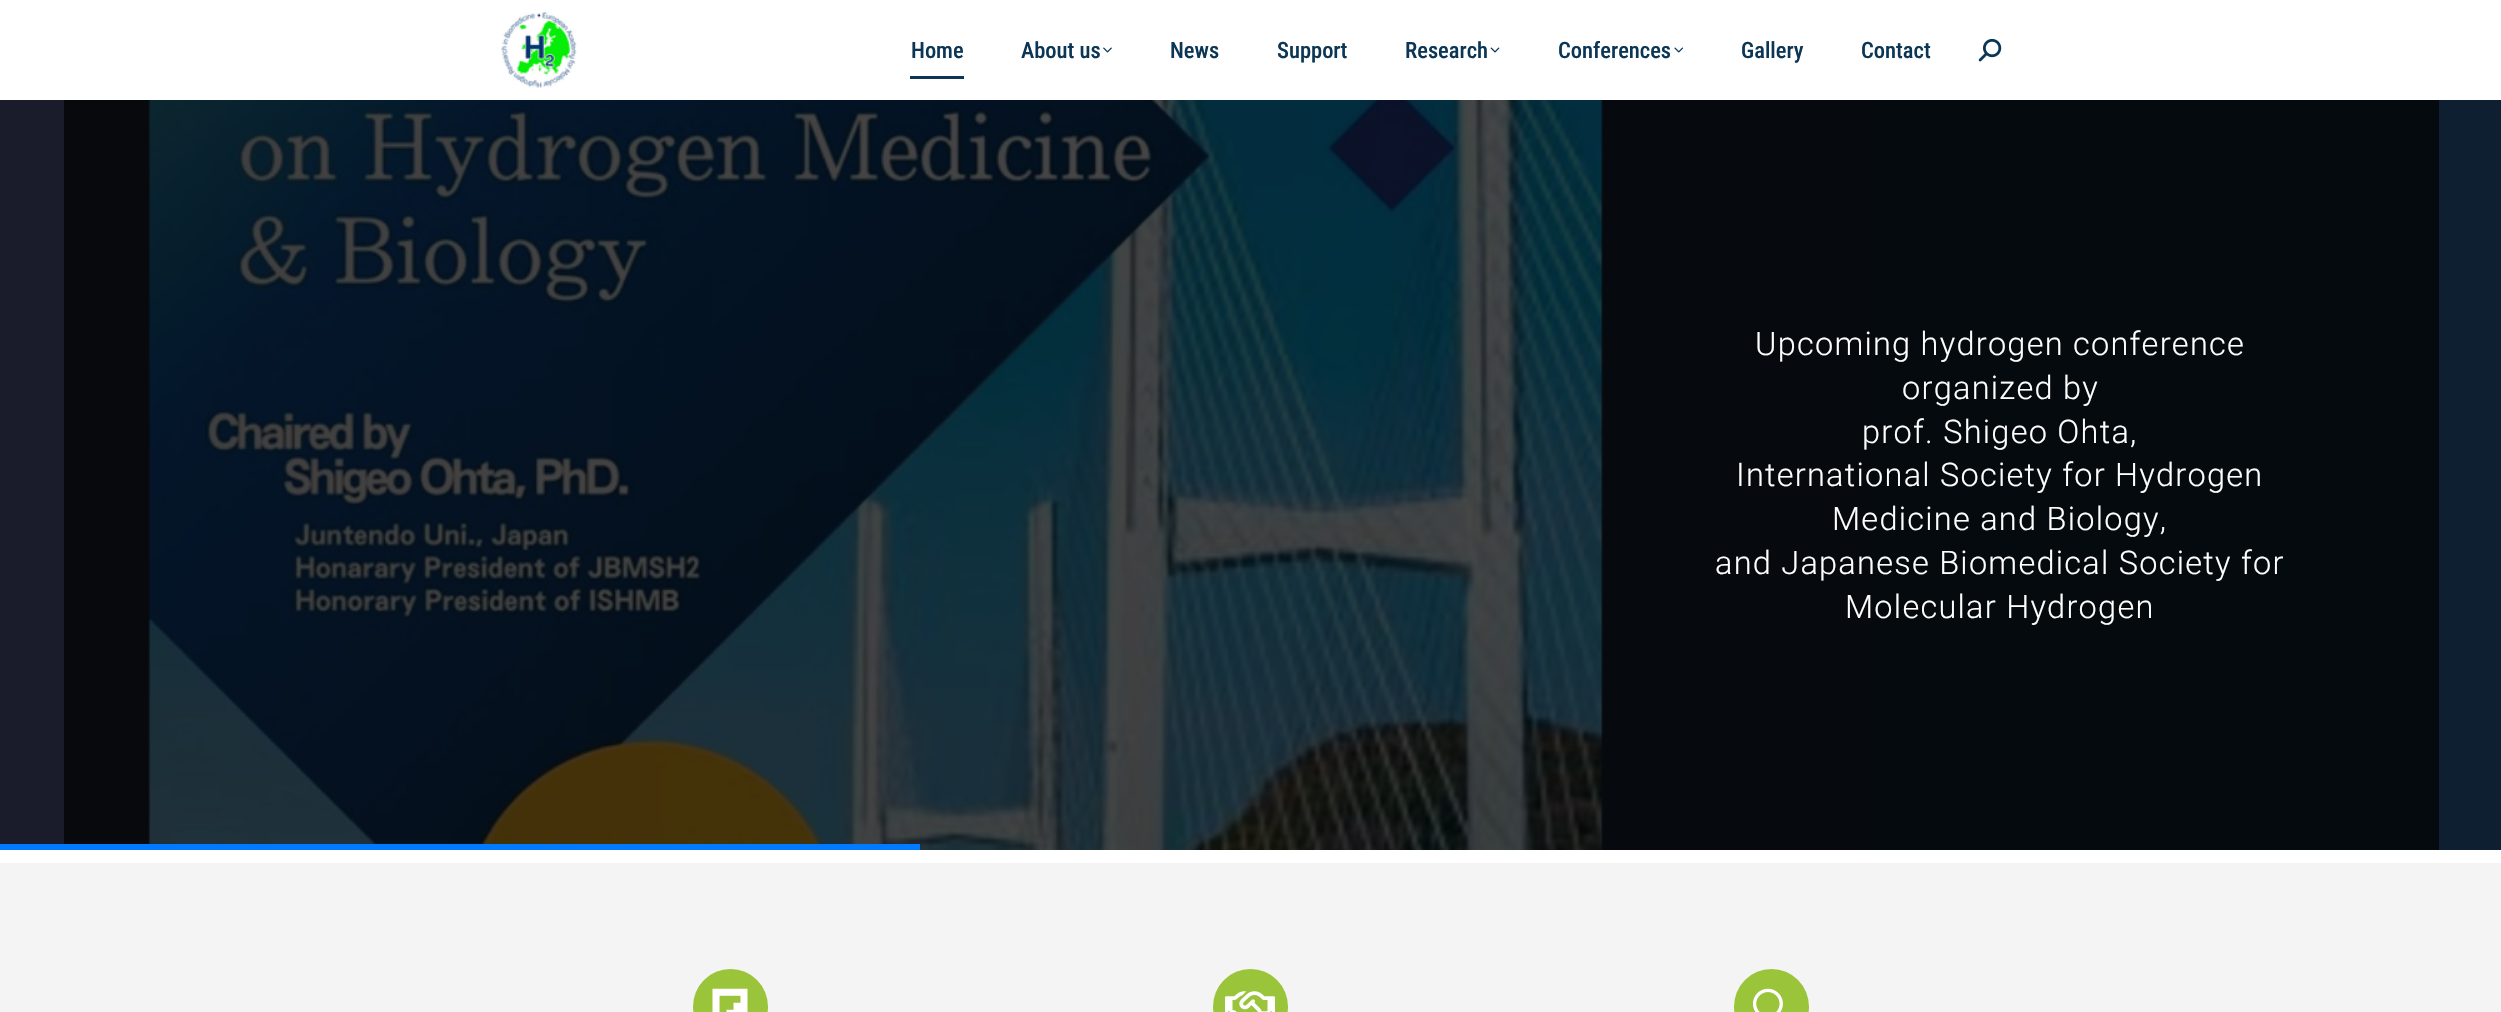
void draw(SkCanvas* canvas) {
    SkPaint paint;
    paint.setAntiAlias(true);
    auto face = [&](const char* family, int weight, float size, bool italic = false) {
        SkFontStyle style(weight, SkFontStyle::kNormal_Width,
            italic ? SkFontStyle::kItalic_Slant : SkFontStyle::kUpright_Slant);
        SkFont result(fontMgr->matchFamilyStyle(family, style), size);
        result.setSubpixel(true);
        return result;
    };
    auto write = [&](const char* s, float x, float y, const SkFont& font, SkColor color) {
        SkPaint ink(SkColor4f::FromColor(color));
        ink.setAntiAlias(true);
        canvas->drawString(s, x, y, font, ink);
    };
    auto writeSpaced = [&](const char* s, float x, float y, const SkFont& font, const SkPaint& ink, float letter, float word) {
        std::vector<SkGlyphID> glyphs(font.countText(s, strlen(s), SkTextEncoding::kUTF8));
        std::vector<float> xs(glyphs.size());
        font.textToGlyphs(s, strlen(s), SkTextEncoding::kUTF8, glyphs);
        font.getXPos(glyphs, xs, x);
        float extra = 0;
        for (size_t i = 0; i < glyphs.size(); i++) {
            xs[i] += extra;
            extra += letter + word * (glyphs[i] == font.unicharToGlyph(' '));
        }
        canvas->drawTextBlob(SkTextBlob::MakeFromPosHGlyphs(glyphs, xs, y, font), 0, 0, ink);
    };
    auto block = [&](float x, float y, float w, float h, SkColor color) {
        SkPaint ink(SkColor4f::FromColor(color));
        ink.setAntiAlias(true);
        canvas->drawRect(SkRect::MakeXYWH(x, y, w, h), ink);
    };
    auto paste = [&](const char* path, float x, float y, float w, float h) {
        auto image = SkImages::DeferredFromEncodedData(SkData::MakeFromFileName(path));
        canvas->drawImageRect(image, SkRect::MakeXYWH(x, y, w, h), SkSamplingOptions());
    };
    canvas->clear(SK_ColorWHITE);
    paste("pic1.png", 501, 12, 76, 76);
    auto kFont1 = face("Roboto Condensed", 500, 22.5f);
    write("Home", 911, 58, kFont1, SkColorSetRGB(11, 54, 85));
    block(910, 76, 54, 3, SkColorSetRGB(11, 54, 85));
    write("About us", 1021, 58, kFont1, SkColorSetRGB(11, 54, 85));
    paste("pic2.png", 1103, 47, 9, 6);
    write("News", 1170, 58, kFont1, SkColorSetRGB(11, 54, 85));
    write("Support", 1277, 58, kFont1, SkColorSetRGB(11, 54, 85));
    write("Research", 1405, 58, kFont1, SkColorSetRGB(11, 54, 85));
    paste("pic3.png", 1490, 47, 10, 6);
    write("Conferences", 1558, 58, kFont1, SkColorSetRGB(11, 54, 85));
    paste("pic4.png", 1674, 47, 10, 6);
    write("Gallery", 1741, 58, kFont1, SkColorSetRGB(11, 54, 85));
    write("Contact", 1861, 58, kFont1, SkColorSetRGB(11, 54, 85));
    paste("pic5.png", 1978, 38, 24, 24);
    block(0, 100, 2501, 750, SkColorSetRGB(14, 31, 49));
    paste("pic6.png", 148, 100, 1455, 750);
    {
        const SkColor colors[] = {SkColorSetARGB(51, 69, 11, 15), SkColorSetARGB(0, 69, 11, 15)};
        const float stops[] = {0, 1};
        const SkPoint ends[] = {{0, 475}, {2501, 475}};
        paint.setShader(SkGradientShader::MakeLinear(ends, colors, stops, 2, SkTileMode::kClamp));
        paint.setAlpha(255);
    }
    canvas->drawRect(SkRect::MakeXYWH(0, 100, 1867, 750), paint);
    block(64, 100, 2375, 750, SkColorSetARGB(179, 0, 0, 0));
    auto kFont2 = face("Roboto", 300, 32.5f);
    paint.setShader(nullptr);
    paint.setColor(SK_ColorWHITE);
    writeSpaced("Upcoming hydrogen conference", 1755, 355, kFont2, paint, 1.25f, 0);
    writeSpaced("organized by", 1902, 399, kFont2, paint, 1.25f, 0);
    writeSpaced("prof. Shigeo Ohta,", 1862, 443, kFont2, paint, 1.25f, 0);
    writeSpaced("International Society for Hydrogen", 1736, 486, kFont2, paint, 1.25f, 0);
    writeSpaced("Medicine and Biology,", 1832, 530, kFont2, paint, 1.25f, 0);
    writeSpaced("and Japanese Biomedical Society for", 1715, 574, kFont2, paint, 1.25f, 0);
    writeSpaced("Molecular Hydrogen", 1845, 618, kFont2, paint, 1.25f, 0);
    block(0, 844, 920, 6, SkColorSetRGB(0, 122, 255));
    block(0, 863, 2501, 149, SkColorSetRGB(244, 244, 244));
    paint.setColor(SkColorSetRGB(154, 196, 58));
    canvas->drawCircle(730.5f, 1006.5f, 37.5f, paint);
    paste("pic7.png", 712, 988, 36, 24);
    canvas->drawCircle(1250.5f, 1006.5f, 37.5f, paint);
    paste("pic8.png", 1225, 991, 50, 21);
    canvas->drawCircle(1771.5f, 1006.5f, 37.5f, paint);
    paste("pic9.png", 1752, 988, 31, 24);
}
